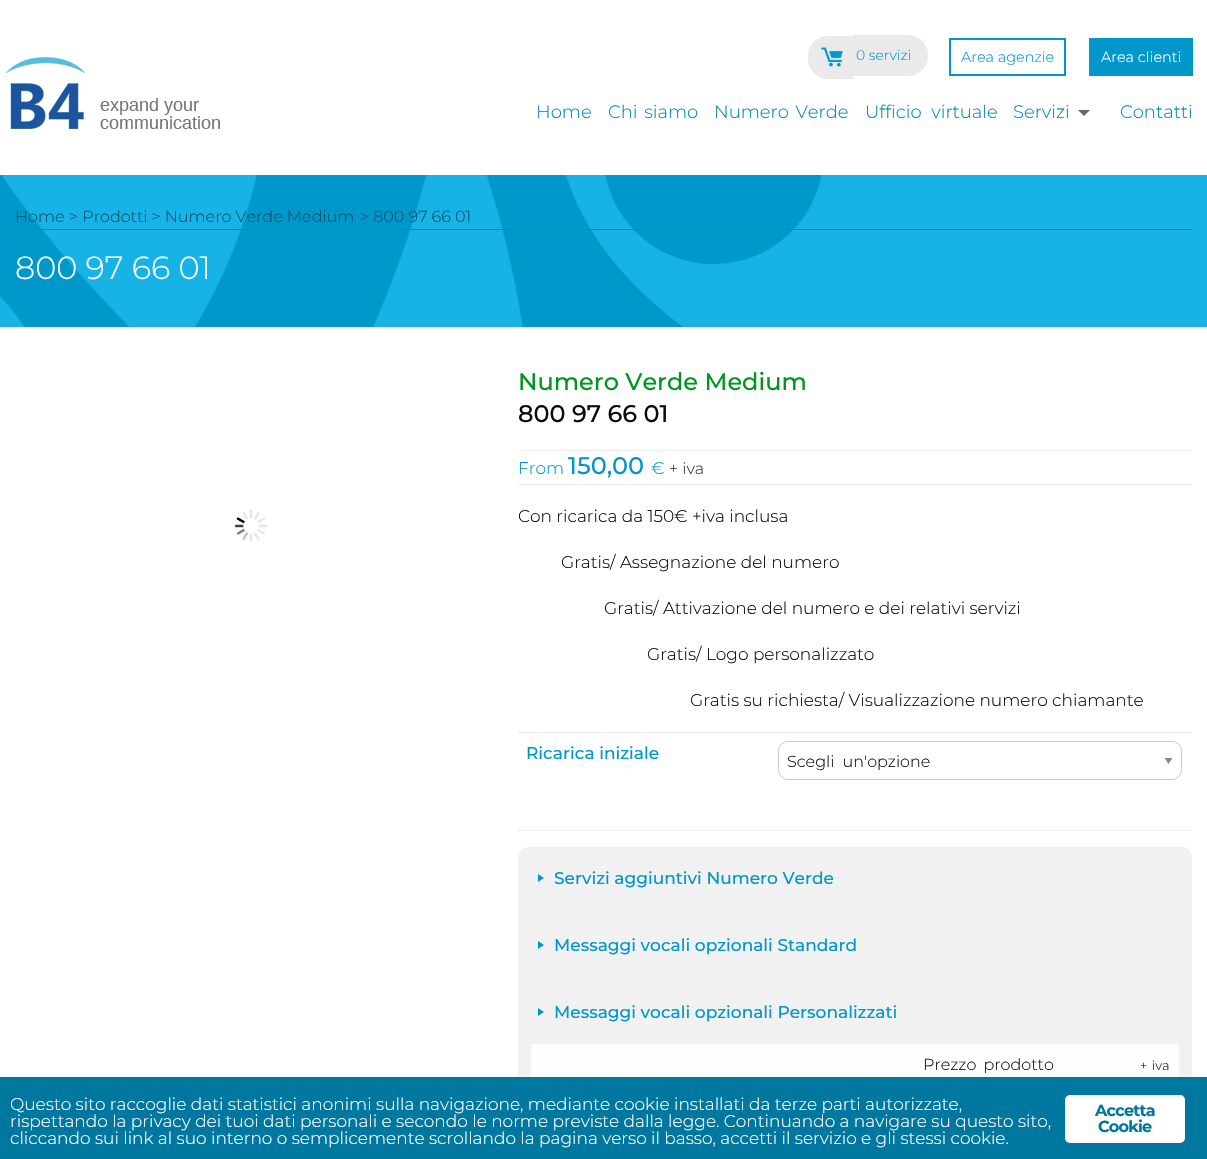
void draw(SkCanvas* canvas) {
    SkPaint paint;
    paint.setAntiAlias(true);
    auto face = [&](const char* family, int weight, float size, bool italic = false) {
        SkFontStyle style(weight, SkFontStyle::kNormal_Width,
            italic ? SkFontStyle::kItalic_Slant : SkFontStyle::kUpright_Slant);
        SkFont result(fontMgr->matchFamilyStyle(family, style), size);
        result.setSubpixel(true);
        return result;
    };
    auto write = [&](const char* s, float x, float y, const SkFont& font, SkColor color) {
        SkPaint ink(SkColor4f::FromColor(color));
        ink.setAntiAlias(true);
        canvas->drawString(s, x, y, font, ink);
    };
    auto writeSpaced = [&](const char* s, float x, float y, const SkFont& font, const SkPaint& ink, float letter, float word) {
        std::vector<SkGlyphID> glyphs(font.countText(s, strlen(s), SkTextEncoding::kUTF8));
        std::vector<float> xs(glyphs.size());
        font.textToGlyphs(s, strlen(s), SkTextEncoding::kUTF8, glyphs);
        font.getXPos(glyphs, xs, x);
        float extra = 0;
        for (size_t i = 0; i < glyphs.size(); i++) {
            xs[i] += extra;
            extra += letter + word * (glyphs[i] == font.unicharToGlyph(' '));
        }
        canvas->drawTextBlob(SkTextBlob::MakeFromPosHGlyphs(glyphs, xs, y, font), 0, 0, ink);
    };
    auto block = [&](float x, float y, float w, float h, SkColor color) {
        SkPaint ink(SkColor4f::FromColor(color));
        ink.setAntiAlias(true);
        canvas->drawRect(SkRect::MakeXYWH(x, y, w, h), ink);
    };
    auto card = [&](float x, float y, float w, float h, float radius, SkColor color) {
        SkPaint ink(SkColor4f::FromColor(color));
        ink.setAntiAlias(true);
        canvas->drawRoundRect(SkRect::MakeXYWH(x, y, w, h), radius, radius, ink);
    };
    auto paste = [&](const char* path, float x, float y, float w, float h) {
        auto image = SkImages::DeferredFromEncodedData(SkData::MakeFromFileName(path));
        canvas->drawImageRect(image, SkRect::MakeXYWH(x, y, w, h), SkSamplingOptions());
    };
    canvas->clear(SK_ColorWHITE);
    paste("pic1.png", 6, 57, 214, 72);
    paint.setColor(SkColorSetRGB(234, 234, 234));
    canvas->drawPath(SkPathBuilder().moveTo(828, 36).lineTo(853, 36).lineTo(853, 79).lineTo(828, 79).cubicTo(817, 79, 808, 70, 808, 59).lineTo(808, 56).cubicTo(808, 45, 817, 36, 828, 36).close().detach(), paint);
    canvas->drawPath(SkPathBuilder().moveTo(853, 35).lineTo(908, 35).cubicTo(919, 35, 928, 44, 928, 55).lineTo(928, 56).cubicTo(928, 67, 919, 76, 908, 76).lineTo(853, 76).close().detach(), paint);
    paste("pic2.png", 821, 47, 22, 20);
    auto kFont1 = face("Montserrat", 300, 14);
    write("0 servizi", 856, 60, kFont1, SkColorSetRGB(0, 152, 202));
    paint.setStyle(SkPaint::kStroke_Style);
    paint.setStrokeWidth(2);
    paint.setColor(SkColorSetRGB(0, 152, 202));
    canvas->drawRect(SkRect::MakeXYWH(950, 39, 115, 36), paint);
    auto kFont2 = face("Montserrat", 300, 14.5f);
    write("Area agenzie", 961, 62, kFont2, SkColorSetRGB(0, 152, 202));
    block(1089, 38, 104, 38, SkColorSetRGB(0, 152, 202));
    write("Area clienti", 1101, 62, kFont2, SK_ColorWHITE);
    auto kFont3 = face("Montserrat", 300, 18);
    write("Home", 536, 118, kFont3, SkColorSetRGB(0, 137, 182));
    paint.setStyle(SkPaint::kFill_Style);
    paint.setColor(SkColorSetRGB(0, 137, 182));
    writeSpaced("Chi siamo", 608, 118, kFont3, paint, 0, 2);
    writeSpaced("Numero Verde", 714, 118, kFont3, paint, 0, 2);
    writeSpaced("Ufficio virtuale", 865, 118, kFont3, paint, 0, 5);
    write("Servizi", 1013, 118, kFont3, SkColorSetRGB(0, 137, 182));
    paint.setColor(SkColorSetRGB(104, 104, 104));
    canvas->drawPath(SkPathBuilder().moveTo(1078, 110).lineTo(1090, 110).lineTo(1084, 116).close().detach(), paint);
    write("Contatti", 1120, 118, kFont3, SkColorSetRGB(0, 137, 182));
    paste("pic3.png", 0, 175, 1207, 152);
    block(15, 229, 1177, 1, SkColorSetRGB(0, 132, 175));
    auto kFont4 = face("Montserrat", 300, 16);
    write("Home", 15, 222, kFont4, SkColorSetRGB(0, 77, 102));
    write("> Prodotti > Numero Verde Medium", 69, 222, kFont4, SkColorSetRGB(0, 77, 102));
    write("> 800 97 66 01", 360, 222, kFont4, SkColorSetRGB(0, 77, 102));
    auto kFont5 = face("Montserrat", 300, 32);
    write("800 97 66 01", 15, 279, kFont5, SK_ColorWHITE);
    paste("pic4.png", 235, 510, 32, 32);
    auto kFont6 = face("Montserrat", 500, 24);
    write("Numero Verde Medium", 518, 390, kFont6, SkColorSetRGB(0, 149, 30));
    write("800 97 66 01", 518, 422, kFont6, SkColorSetRGB(10, 10, 10));
    block(518, 450, 674, 1, SkColorSetRGB(237, 237, 237));
    block(518, 484, 674, 1, SkColorSetRGB(237, 237, 237));
    auto kFont7 = face("Montserrat", 300, 17);
    write("From", 518, 474, kFont7, SkColorSetRGB(0, 152, 202));
    write("150,00", 568, 474, kFont6, SkColorSetRGB(0, 152, 202));
    write("€", 651, 474, kFont7, SkColorSetRGB(0, 152, 202));
    write("+ iva", 669, 474, kFont4, SkColorSetRGB(51, 51, 51));
    write("Con ricarica da 150€ +iva inclusa", 518, 522, kFont7, SkColorSetRGB(10, 10, 10));
    write("Gratis/ Assegnazione del numero", 561, 568, kFont7, SkColorSetRGB(10, 10, 10));
    write("Gratis/ Attivazione del numero e dei relativi servizi", 604, 614, kFont7, SkColorSetRGB(10, 10, 10));
    write("Gratis/ Logo personalizzato", 647, 660, kFont7, SkColorSetRGB(10, 10, 10));
    write("Gratis su richiesta/ Visualizzazione numero chiamante", 690, 706, kFont7, SkColorSetRGB(10, 10, 10));
    block(517, 732, 675, 1, SkColorSetRGB(237, 237, 237));
    block(517, 830, 675, 1, SkColorSetRGB(237, 237, 237));
    auto kFont8 = face("Montserrat", 500, 17);
    write("Ricarica iniziale", 526, 759, kFont8, SkColorSetRGB(0, 152, 202));
    paint.setColor(SkColorSetRGB(138, 138, 138));
    canvas->drawPath(SkPathBuilder().moveTo(1164.5f, 758).lineTo(1172.5f, 758).lineTo(1168.5f, 764).close().detach(), paint);
    paint.setStyle(SkPaint::kStroke_Style);
    paint.setStrokeWidth(1);
    paint.setColor(SkColorSetRGB(202, 202, 202));
    canvas->drawRoundRect(SkRect::MakeXYWH(778.5f, 741.5f, 403, 38), 9.5f, 9.5f, paint);
    paint.setStyle(SkPaint::kFill_Style);
    paint.setColor(SkColorSetRGB(10, 10, 10));
    writeSpaced("Scegli un'opzione", 787, 767, kFont4, paint, 0, 4);
    card(518, 847, 674, 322, 10, SkColorSetRGB(241, 241, 241));
    paint.setColor(SkColorSetRGB(0, 152, 202));
    canvas->drawPath(SkPathBuilder().moveTo(538, 874).lineTo(544, 878).lineTo(538, 882).close().detach(), paint);
    write("Servizi aggiuntivi Numero Verde", 554, 884, kFont8, SkColorSetRGB(0, 152, 202));
    canvas->drawPath(SkPathBuilder().moveTo(538, 941).lineTo(544, 945).lineTo(538, 949).close().detach(), paint);
    write("Messaggi vocali opzionali Standard", 554, 951, kFont8, SkColorSetRGB(0, 152, 202));
    canvas->drawPath(SkPathBuilder().moveTo(538, 1008).lineTo(544, 1012).lineTo(538, 1016).close().detach(), paint);
    write("Messaggi vocali opzionali Personalizzati", 554, 1018, kFont8, SkColorSetRGB(0, 152, 202));
    block(531, 1044, 648, 33, SkColorSetRGB(254, 254, 254));
    paint.setColor(SkColorSetRGB(10, 10, 10));
    writeSpaced("Prezzo prodotto", 923, 1070, kFont4, paint, 0, 3);
    auto kFont9 = face("Montserrat", 300, 13);
    writeSpaced("+ iva", 1140, 1070, kFont9, paint, 0, 1);
    block(0, 1077, 1207, 82, SkColorSetRGB(0, 119, 158));
    write("Questo sito raccoglie dati statistici anonimi sulla navigazione, mediante cookie installati da terze parti autorizzate,", 10, 1110, kFont7, SK_ColorWHITE);
    write("rispettando la privacy dei tuoi dati personali e secondo le norme previste dalla legge. Continuando a navigare su questo sito,", 10, 1127, kFont7, SK_ColorWHITE);
    write("cliccando sui link al suo interno o semplicemente scrollando la pagina verso il basso, accetti il servizio e gli stessi cookie.", 10, 1144, kFont7, SK_ColorWHITE);
    card(1065, 1095, 120, 48, 5, SK_ColorWHITE);
    auto kFont10 = face("Montserrat", 700, 16);
    paint.setColor(SkColorSetRGB(0, 119, 158));
    writeSpaced("Accetta", 1095, 1116, kFont10, paint, -0.75f, 0);
    writeSpaced("Cookie", 1098, 1132, kFont10, paint, -0.75f, 0);
}
